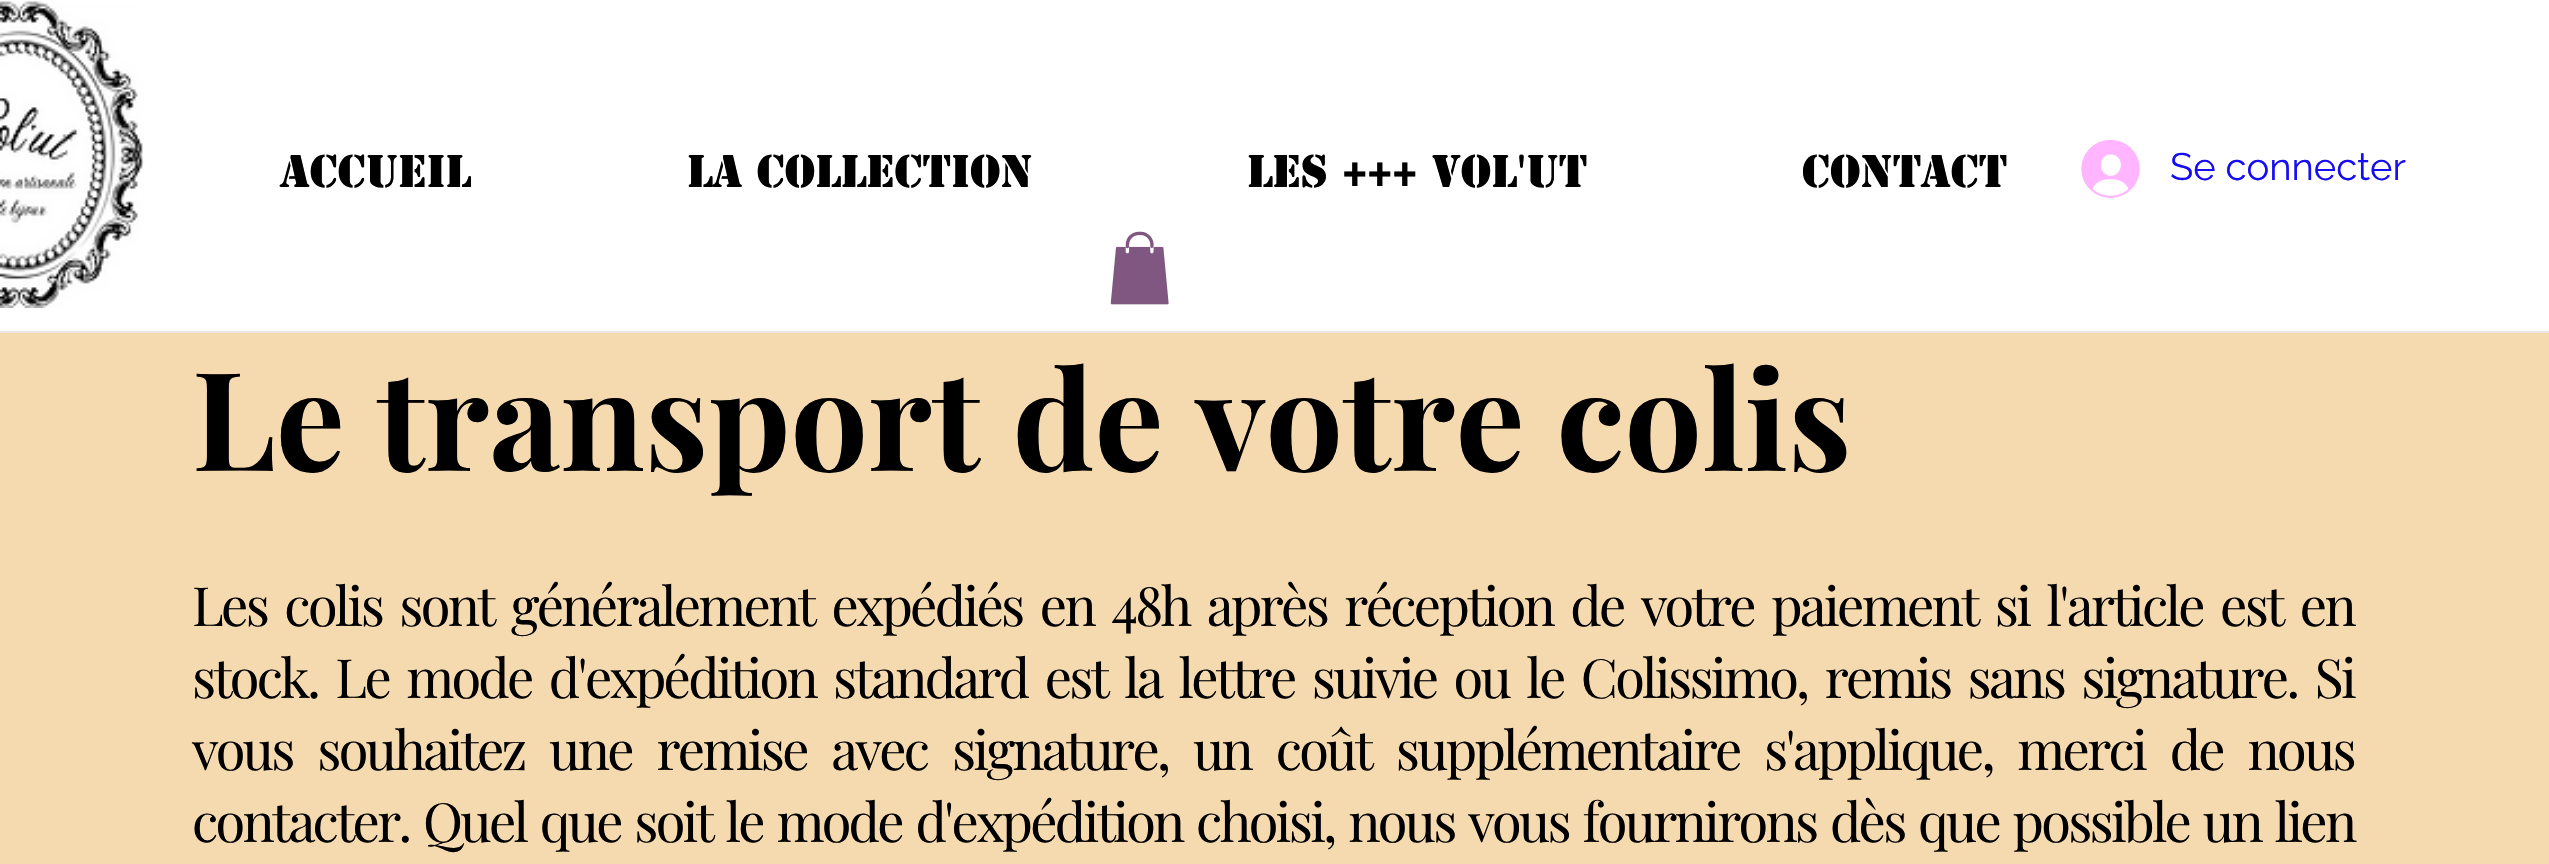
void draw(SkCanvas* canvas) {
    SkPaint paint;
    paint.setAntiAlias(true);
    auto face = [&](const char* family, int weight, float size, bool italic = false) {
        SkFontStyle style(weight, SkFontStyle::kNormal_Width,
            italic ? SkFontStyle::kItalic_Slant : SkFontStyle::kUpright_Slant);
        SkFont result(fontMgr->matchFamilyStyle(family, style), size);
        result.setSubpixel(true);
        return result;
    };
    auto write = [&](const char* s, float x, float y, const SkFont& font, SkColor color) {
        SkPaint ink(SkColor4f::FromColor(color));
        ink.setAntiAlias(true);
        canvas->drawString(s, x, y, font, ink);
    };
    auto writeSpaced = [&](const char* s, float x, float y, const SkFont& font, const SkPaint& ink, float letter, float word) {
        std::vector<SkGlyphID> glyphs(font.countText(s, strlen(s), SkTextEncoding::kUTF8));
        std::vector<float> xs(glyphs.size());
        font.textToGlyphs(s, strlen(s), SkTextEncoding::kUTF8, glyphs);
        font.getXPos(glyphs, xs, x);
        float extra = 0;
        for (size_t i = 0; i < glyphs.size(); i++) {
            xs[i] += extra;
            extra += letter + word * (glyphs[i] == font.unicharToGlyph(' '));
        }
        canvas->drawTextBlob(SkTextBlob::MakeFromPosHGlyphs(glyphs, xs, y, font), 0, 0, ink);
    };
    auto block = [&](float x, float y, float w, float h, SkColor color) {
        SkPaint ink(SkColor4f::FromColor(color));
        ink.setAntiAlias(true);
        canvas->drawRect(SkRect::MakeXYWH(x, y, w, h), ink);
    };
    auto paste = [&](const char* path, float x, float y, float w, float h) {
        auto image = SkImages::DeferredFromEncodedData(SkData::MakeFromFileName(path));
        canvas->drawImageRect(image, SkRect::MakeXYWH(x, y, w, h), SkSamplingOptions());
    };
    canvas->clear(SkColorSetRGB(245, 217, 175));
    block(0, 0, 2549, 331, SK_ColorWHITE);
    block(0, 331, 2549, 2, SkColorSetRGB(232, 230, 230));
    paste("pic1.png", 0, 1, 145, 307);
    auto kFont1 = face("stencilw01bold", 700, 42.75f);
    write("ACCUEIL", 280, 187, kFont1, SK_ColorBLACK);
    write("LA COLLECTION", 687, 187, kFont1, SK_ColorBLACK);
    write("Les +++ Vol'ut", 1247, 187, kFont1, SK_ColorBLACK);
    write("CONTACT", 1802, 187, kFont1, SK_ColorBLACK);
    paste("pic2.png", 2081, 140, 59, 58);
    auto kFont2 = face("Raleway", 400, 38.25f);
    write("Se connecter", 2170, 180, kFont2, SkColorSetRGB(23, 13, 242));
    paste("pic3.png", 1110, 231, 59, 74);
    auto kFont3 = face("Playfair Display", 700, 137.25f);
    write("Le transport de votre colis", 192, 471, kFont3, SK_ColorBLACK);
    auto kFont4 = face("Playfair Display", 400, 54);
    paint.setColor(SK_ColorBLACK);
    writeSpaced("Les colis sont généralement expédiés en 48h après réception de votre paiement si l'article est en", 192, 626, kFont4, paint, -2.7f, 6.5f);
    writeSpaced("stock. Le mode d'expédition standard est la lettre suivie ou le Colissimo, remis sans signature. Si", 192, 698, kFont4, paint, -2.7f, 6.4f);
    writeSpaced("vous souhaitez une remise avec signature, un coût supplémentaire s'applique, merci de nous", 192, 770, kFont4, paint, -2.7f, 13.75f);
    writeSpaced("contacter. Quel que soit le mode d'expédition choisi, nous vous fournirons dès que possible un lien", 192, 842, kFont4, paint, -2.7f, 2.75f);
}
